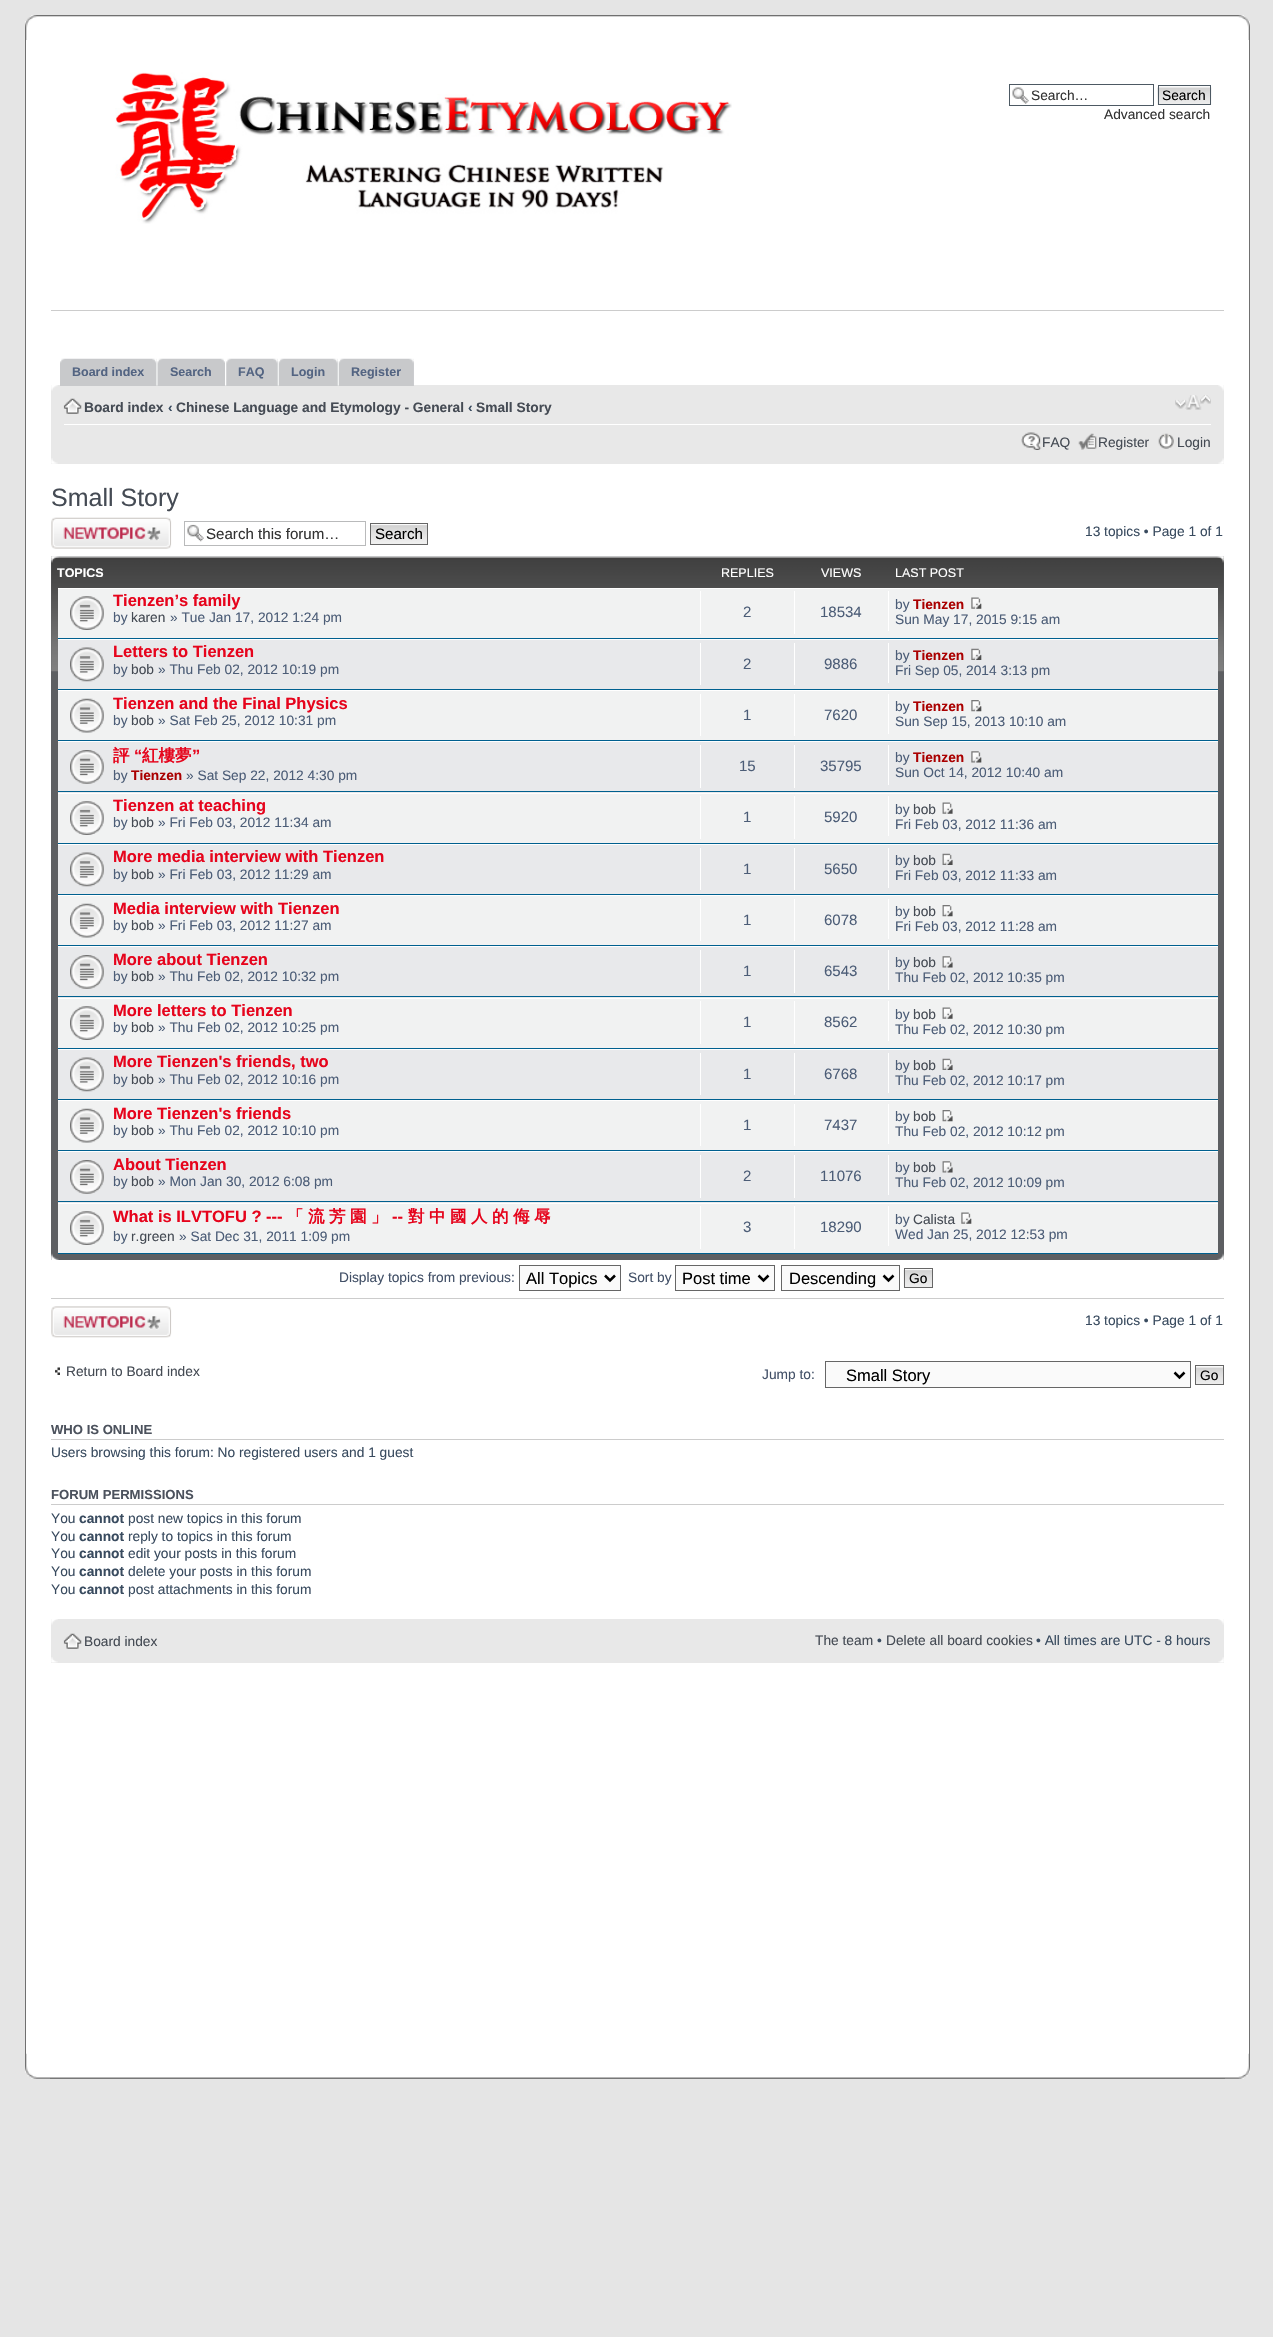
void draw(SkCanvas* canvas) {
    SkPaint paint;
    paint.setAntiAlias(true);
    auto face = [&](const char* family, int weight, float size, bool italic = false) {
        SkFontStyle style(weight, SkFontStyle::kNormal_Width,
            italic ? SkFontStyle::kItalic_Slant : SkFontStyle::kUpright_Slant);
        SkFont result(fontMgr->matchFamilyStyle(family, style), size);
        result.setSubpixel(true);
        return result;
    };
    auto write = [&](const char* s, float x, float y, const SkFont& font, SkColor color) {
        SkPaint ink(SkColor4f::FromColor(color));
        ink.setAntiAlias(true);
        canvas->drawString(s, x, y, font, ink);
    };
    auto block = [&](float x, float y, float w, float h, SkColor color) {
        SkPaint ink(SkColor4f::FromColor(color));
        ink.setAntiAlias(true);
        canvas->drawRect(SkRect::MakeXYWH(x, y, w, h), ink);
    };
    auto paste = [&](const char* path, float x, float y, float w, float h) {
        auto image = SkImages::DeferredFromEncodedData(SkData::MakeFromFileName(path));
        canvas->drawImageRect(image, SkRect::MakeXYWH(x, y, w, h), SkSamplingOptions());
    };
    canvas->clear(SkColorSetRGB(229, 229, 229));
    paste("pic1.png", 25, 15, 1200, 25);
    paste("pic2.png", 1225, 15, 25, 25);
    block(26, 40, 1223, 2014, SK_ColorWHITE);
    block(1249, 40, 1, 2014, SkColorSetRGB(112, 112, 112));
    block(25, 40, 1, 2014, SkColorSetRGB(112, 112, 112));
    paste("pic3.png", 115, 72, 617, 152);
    paste("pic4.png", 1012, 87, 17, 17);
    paint.setStyle(SkPaint::kStroke_Style);
    paint.setStrokeWidth(1);
    paint.setColor(SkColorSetRGB(77, 89, 99));
    canvas->drawRect(SkRect::MakeXYWH(1009.5f, 84.5f, 144, 21), paint);
    auto kFont1 = face("Liberation Sans", 400, 13.75f);
    write("Search…", 1031, 100, kFont1, SkColorSetRGB(51, 51, 51));
    block(1159, 86, 51, 1, SkColorSetRGB(250, 250, 250));
    paste("pic5.png", 1157, 87, 55, 18);
    canvas->drawRect(SkRect::MakeXYWH(1158.5f, 85.5f, 52, 19), paint);
    write("Search", 1162, 100, kFont1, SK_ColorBLACK);
    write("Advanced search", 1104, 119, kFont1, SkColorSetRGB(51, 51, 51));
    block(51, 310, 1173, 1, SkColorSetRGB(204, 204, 204));
    block(51, 385, 1173, 79, SkColorSetRGB(232, 232, 232));
    paste("pic6.png", 60, 358, 97, 28);
    paste("pic7.png", 152, 358, 5, 28);
    auto kFont2 = face("Liberation Sans", 700, 12.5f);
    write("Board index", 72, 376, kFont2, SkColorSetRGB(83, 100, 130));
    paste("pic8.png", 157, 358, 68, 28);
    paste("pic9.png", 221, 358, 4, 5);
    write("Search", 170, 376, kFont2, SkColorSetRGB(83, 100, 130));
    paste("pic10.png", 226, 358, 52, 28);
    paste("pic11.png", 273, 358, 5, 28);
    write("FAQ", 238, 376, kFont2, SkColorSetRGB(83, 100, 130));
    paste("pic12.png", 278, 358, 60, 28);
    paste("pic11.png", 333, 358, 5, 28);
    write("Login", 291, 376, kFont2, SkColorSetRGB(83, 100, 130));
    paste("pic13.png", 338, 358, 76, 28);
    paste("pic14.png", 409, 358, 5, 28);
    write("Register", 351, 376, kFont2, SkColorSetRGB(83, 100, 130));
    paste("pic15.png", 51, 385, 7, 6);
    paste("pic16.png", 1218, 385, 6, 6);
    block(64, 424, 1147, 1, SK_ColorWHITE);
    paste("pic17.png", 63, 398, 19, 16);
    auto kFont3 = face("Liberation Sans", 700, 13.75f);
    write("Board index", 84, 412, kFont3, SkColorSetRGB(69, 75, 84));
    write("‹", 168, 412, kFont3, SkColorSetRGB(57, 75, 95));
    write("Chinese Language and Etymology - General", 176, 412, kFont3, SkColorSetRGB(69, 75, 84));
    write("‹", 468, 412, kFont3, SkColorSetRGB(57, 75, 95));
    write("Small Story", 476, 412, kFont3, SkColorSetRGB(69, 75, 84));
    paste("pic18.png", 1175, 395, 36, 15);
    paste("pic19.png", 1021, 432, 21, 18);
    write("FAQ", 1042, 447, kFont1, SkColorSetRGB(69, 75, 84));
    paste("pic20.png", 1078, 433, 19, 17);
    write("Register", 1098, 447, kFont1, SkColorSetRGB(69, 75, 84));
    paste("pic21.png", 1158, 433, 16, 16);
    write("Login", 1177, 447, kFont1, SkColorSetRGB(69, 75, 84));
    paste("pic22.png", 51, 458, 7, 6);
    paste("pic23.png", 1218, 458, 6, 6);
    auto kFont4 = face("Liberation Sans", 400, 25);
    write("Small Story", 51, 506, kFont4, SkColorSetRGB(69, 75, 84));
    paste("pic24.png", 51, 517, 121, 32);
    paste("pic25.png", 187, 524, 17, 18);
    paint.setColor(SkColorSetRGB(185, 186, 187));
    canvas->drawRect(SkRect::MakeXYWH(184.5f, 521.5f, 181, 24), paint);
    auto kFont5 = face("Liberation Sans", 400, 15.1f);
    write("Search this forum…", 206, 539, kFont5, SkColorSetRGB(51, 51, 51));
    block(371, 524, 56, 1, SkColorSetRGB(250, 250, 250));
    paste("pic26.png", 371, 525, 56, 19);
    paint.setColor(SkColorSetRGB(102, 102, 102));
    canvas->drawRect(SkRect::MakeXYWH(370.5f, 523.5f, 57, 21), paint);
    write("Search", 375, 539, kFont5, SK_ColorBLACK);
    write("13 topics • Page 1 of 1", 1085, 536, kFont1, SkColorSetRGB(57, 75, 95));
    block(51, 556, 1173, 704, SkColorSetRGB(93, 95, 98));
    paste("pic27.png", 51, 556, 1173, 116);
    paste("pic28.png", 51, 556, 8, 7);
    paste("pic29.png", 1217, 556, 7, 7);
    write("TOPICS", 57, 577, kFont2, SK_ColorWHITE);
    auto kFont6 = face("Liberation Sans", 400, 12.5f);
    write("REPLIES", 721, 577, kFont6, SK_ColorWHITE);
    write("VIEWS", 821, 577, kFont6, SK_ColorWHITE);
    write("LAST POST", 895, 577, kFont6, SK_ColorWHITE);
    block(58, 589, 1160, 49, SkColorSetRGB(241, 242, 242));
    block(58, 588, 1160, 1, SK_ColorWHITE);
    block(58, 638, 1160, 1, SkColorSetRGB(0, 96, 143));
    paste("pic30.png", 70, 596, 34, 34);
    auto kFont7 = face("Liberation Sans", 700, 16.5f);
    write("Tienzen’s family", 113, 606, kFont7, SkColorSetRGB(230, 4, 28));
    write("by", 113, 622, kFont1, SkColorSetRGB(76, 93, 119));
    write("karen", 131, 622, kFont1, SkColorSetRGB(69, 75, 84));
    write("» Tue Jan 17, 2012 1:24 pm", 170, 622, kFont1, SkColorSetRGB(76, 93, 119));
    block(700, 591, 1, 43, SK_ColorWHITE);
    auto kFont8 = face("Liberation Sans", 400, 15);
    write("2", 743, 617, kFont8, SkColorSetRGB(76, 93, 119));
    block(794, 591, 1, 43, SK_ColorWHITE);
    write("18534", 820, 617, kFont8, SkColorSetRGB(76, 93, 119));
    block(888, 591, 1, 40, SK_ColorWHITE);
    write("by", 895, 609, kFont1, SkColorSetRGB(76, 93, 119));
    write("Tienzen", 913, 609, kFont3, SkColorSetRGB(170, 0, 0));
    paste("pic31.png", 971, 597, 11, 12);
    write("Sun May 17, 2015 9:15 am", 895, 624, kFont1, SkColorSetRGB(76, 93, 119));
    block(58, 640, 1160, 49, SkColorSetRGB(232, 233, 235));
    block(58, 639, 1160, 1, SK_ColorWHITE);
    block(58, 689, 1160, 1, SkColorSetRGB(0, 96, 143));
    paste("pic32.png", 70, 647, 34, 35);
    write("Letters to Tienzen", 113, 657, kFont7, SkColorSetRGB(230, 4, 28));
    write("by", 113, 674, kFont1, SkColorSetRGB(76, 93, 119));
    write("bob", 131, 674, kFont1, SkColorSetRGB(69, 75, 84));
    write("» Thu Feb 02, 2012 10:19 pm", 158, 674, kFont1, SkColorSetRGB(76, 93, 119));
    block(700, 643, 1, 42, SK_ColorWHITE);
    write("2", 743, 669, kFont8, SkColorSetRGB(76, 93, 119));
    block(794, 643, 1, 42, SK_ColorWHITE);
    write("9886", 824, 669, kFont8, SkColorSetRGB(76, 93, 119));
    block(888, 643, 1, 40, SK_ColorWHITE);
    write("by", 895, 660, kFont1, SkColorSetRGB(76, 93, 119));
    write("Tienzen", 913, 660, kFont3, SkColorSetRGB(170, 0, 0));
    paste("pic33.png", 971, 648, 11, 12);
    write("Fri Sep 05, 2014 3:13 pm", 895, 675, kFont1, SkColorSetRGB(76, 93, 119));
    block(58, 691, 1160, 49, SkColorSetRGB(241, 242, 242));
    block(58, 690, 1160, 1, SK_ColorWHITE);
    block(58, 740, 1160, 1, SkColorSetRGB(0, 96, 143));
    paste("pic34.png", 70, 698, 34, 35);
    write("Tienzen and the Final Physics", 113, 709, kFont7, SkColorSetRGB(230, 4, 28));
    write("by", 113, 725, kFont1, SkColorSetRGB(76, 93, 119));
    write("bob", 131, 725, kFont1, SkColorSetRGB(69, 75, 84));
    write("» Sat Feb 25, 2012 10:31 pm", 158, 725, kFont1, SkColorSetRGB(76, 93, 119));
    block(700, 694, 1, 42, SK_ColorWHITE);
    write("1", 743, 720, kFont8, SkColorSetRGB(76, 93, 119));
    block(794, 694, 1, 42, SK_ColorWHITE);
    write("7620", 824, 720, kFont8, SkColorSetRGB(76, 93, 119));
    block(888, 694, 1, 40, SK_ColorWHITE);
    write("by", 895, 711, kFont1, SkColorSetRGB(76, 93, 119));
    write("Tienzen", 913, 711, kFont3, SkColorSetRGB(170, 0, 0));
    paste("pic35.png", 971, 700, 11, 12);
    write("Sun Sep 15, 2013 10:10 am", 895, 726, kFont1, SkColorSetRGB(76, 93, 119));
    block(58, 742, 1160, 51, SkColorSetRGB(232, 233, 235));
    block(58, 741, 1160, 1, SK_ColorWHITE);
    block(58, 791, 1160, 1, SkColorSetRGB(0, 96, 143));
    paste("pic36.png", 70, 750, 34, 34);
    auto kFont9 = face("WenQuanYi Zen Hei", 700, 16.5f);
    write("評", 113, 761, kFont9, SkColorSetRGB(230, 4, 28));
    write("“", 134, 761, kFont7, SkColorSetRGB(230, 4, 28));
    write("紅樓夢", 142, 761, kFont9, SkColorSetRGB(230, 4, 28));
    write("”", 192, 761, kFont7, SkColorSetRGB(230, 4, 28));
    write("by", 113, 780, kFont1, SkColorSetRGB(76, 93, 119));
    write("Tienzen", 131, 780, kFont3, SkColorSetRGB(170, 0, 0));
    write("» Sat Sep 22, 2012 4:30 pm", 186, 780, kFont1, SkColorSetRGB(76, 93, 119));
    block(700, 745, 1, 43, SK_ColorWHITE);
    write("15", 739, 771, kFont8, SkColorSetRGB(76, 93, 119));
    block(794, 745, 1, 43, SK_ColorWHITE);
    write("35795", 820, 771, kFont8, SkColorSetRGB(76, 93, 119));
    block(888, 745, 1, 40, SK_ColorWHITE);
    write("by", 895, 762, kFont1, SkColorSetRGB(76, 93, 119));
    write("Tienzen", 913, 762, kFont3, SkColorSetRGB(170, 0, 0));
    paste("pic37.png", 971, 751, 11, 12);
    write("Sun Oct 14, 2012 10:40 am", 895, 777, kFont1, SkColorSetRGB(76, 93, 119));
    block(58, 794, 1160, 49, SkColorSetRGB(241, 242, 242));
    block(58, 793, 1160, 1, SK_ColorWHITE);
    block(58, 843, 1160, 1, SkColorSetRGB(0, 96, 143));
    paste("pic30.png", 70, 801, 34, 34);
    write("Tienzen at teaching", 113, 811, kFont7, SkColorSetRGB(230, 4, 28));
    write("by", 113, 827, kFont1, SkColorSetRGB(76, 93, 119));
    write("bob", 131, 827, kFont1, SkColorSetRGB(69, 75, 84));
    write("» Fri Feb 03, 2012 11:34 am", 158, 827, kFont1, SkColorSetRGB(76, 93, 119));
    block(700, 796, 1, 43, SK_ColorWHITE);
    write("1", 743, 822, kFont8, SkColorSetRGB(76, 93, 119));
    block(794, 796, 1, 43, SK_ColorWHITE);
    write("5920", 824, 822, kFont8, SkColorSetRGB(76, 93, 119));
    block(888, 796, 1, 40, SK_ColorWHITE);
    write("by", 895, 814, kFont1, SkColorSetRGB(76, 93, 119));
    write("bob", 913, 814, kFont1, SkColorSetRGB(69, 75, 84));
    paste("pic38.png", 942, 802, 11, 12);
    write("Fri Feb 03, 2012 11:36 am", 895, 829, kFont1, SkColorSetRGB(76, 93, 119));
    block(58, 845, 1160, 49, SkColorSetRGB(232, 233, 235));
    block(58, 844, 1160, 1, SK_ColorWHITE);
    block(58, 894, 1160, 1, SkColorSetRGB(0, 96, 143));
    paste("pic32.png", 70, 852, 34, 35);
    write("More media interview with Tienzen", 113, 862, kFont7, SkColorSetRGB(230, 4, 28));
    write("by", 113, 879, kFont1, SkColorSetRGB(76, 93, 119));
    write("bob", 131, 879, kFont1, SkColorSetRGB(69, 75, 84));
    write("» Fri Feb 03, 2012 11:29 am", 158, 879, kFont1, SkColorSetRGB(76, 93, 119));
    block(700, 848, 1, 42, SK_ColorWHITE);
    write("1", 743, 874, kFont8, SkColorSetRGB(76, 93, 119));
    block(794, 848, 1, 42, SK_ColorWHITE);
    write("5650", 824, 874, kFont8, SkColorSetRGB(76, 93, 119));
    block(888, 848, 1, 40, SK_ColorWHITE);
    write("by", 895, 865, kFont1, SkColorSetRGB(76, 93, 119));
    write("bob", 913, 865, kFont1, SkColorSetRGB(69, 75, 84));
    paste("pic39.png", 942, 853, 11, 12);
    write("Fri Feb 03, 2012 11:33 am", 895, 880, kFont1, SkColorSetRGB(76, 93, 119));
    block(58, 896, 1160, 49, SkColorSetRGB(241, 242, 242));
    block(58, 895, 1160, 1, SK_ColorWHITE);
    block(58, 945, 1160, 1, SkColorSetRGB(0, 96, 143));
    paste("pic34.png", 70, 903, 34, 35);
    write("Media interview with Tienzen", 113, 914, kFont7, SkColorSetRGB(230, 4, 28));
    write("by", 113, 930, kFont1, SkColorSetRGB(76, 93, 119));
    write("bob", 131, 930, kFont1, SkColorSetRGB(69, 75, 84));
    write("» Fri Feb 03, 2012 11:27 am", 158, 930, kFont1, SkColorSetRGB(76, 93, 119));
    block(700, 899, 1, 42, SK_ColorWHITE);
    write("1", 743, 925, kFont8, SkColorSetRGB(76, 93, 119));
    block(794, 899, 1, 42, SK_ColorWHITE);
    write("6078", 824, 925, kFont8, SkColorSetRGB(76, 93, 119));
    block(888, 899, 1, 40, SK_ColorWHITE);
    write("by", 895, 916, kFont1, SkColorSetRGB(76, 93, 119));
    write("bob", 913, 916, kFont1, SkColorSetRGB(69, 75, 84));
    paste("pic40.png", 942, 905, 11, 12);
    write("Fri Feb 03, 2012 11:28 am", 895, 931, kFont1, SkColorSetRGB(76, 93, 119));
    block(58, 947, 1160, 51, SkColorSetRGB(232, 233, 235));
    block(58, 946, 1160, 1, SK_ColorWHITE);
    block(58, 996, 1160, 1, SkColorSetRGB(0, 96, 143));
    paste("pic36.png", 70, 955, 34, 34);
    write("More about Tienzen", 113, 965, kFont7, SkColorSetRGB(230, 4, 28));
    write("by", 113, 981, kFont1, SkColorSetRGB(76, 93, 119));
    write("bob", 131, 981, kFont1, SkColorSetRGB(69, 75, 84));
    write("» Thu Feb 02, 2012 10:32 pm", 158, 981, kFont1, SkColorSetRGB(76, 93, 119));
    block(700, 950, 1, 43, SK_ColorWHITE);
    write("1", 743, 976, kFont8, SkColorSetRGB(76, 93, 119));
    block(794, 950, 1, 43, SK_ColorWHITE);
    write("6543", 824, 976, kFont8, SkColorSetRGB(76, 93, 119));
    block(888, 950, 1, 40, SK_ColorWHITE);
    write("by", 895, 967, kFont1, SkColorSetRGB(76, 93, 119));
    write("bob", 913, 967, kFont1, SkColorSetRGB(69, 75, 84));
    paste("pic41.png", 942, 956, 11, 12);
    write("Thu Feb 02, 2012 10:35 pm", 895, 982, kFont1, SkColorSetRGB(76, 93, 119));
    block(58, 999, 1160, 49, SkColorSetRGB(241, 242, 242));
    block(58, 998, 1160, 1, SK_ColorWHITE);
    block(58, 1048, 1160, 1, SkColorSetRGB(0, 96, 143));
    paste("pic30.png", 70, 1006, 34, 34);
    write("More letters to Tienzen", 113, 1016, kFont7, SkColorSetRGB(230, 4, 28));
    write("by", 113, 1032, kFont1, SkColorSetRGB(76, 93, 119));
    write("bob", 131, 1032, kFont1, SkColorSetRGB(69, 75, 84));
    write("» Thu Feb 02, 2012 10:25 pm", 158, 1032, kFont1, SkColorSetRGB(76, 93, 119));
    block(700, 1001, 1, 43, SK_ColorWHITE);
    write("1", 743, 1027, kFont8, SkColorSetRGB(76, 93, 119));
    block(794, 1001, 1, 43, SK_ColorWHITE);
    write("8562", 824, 1027, kFont8, SkColorSetRGB(76, 93, 119));
    block(888, 1001, 1, 40, SK_ColorWHITE);
    write("by", 895, 1019, kFont1, SkColorSetRGB(76, 93, 119));
    write("bob", 913, 1019, kFont1, SkColorSetRGB(69, 75, 84));
    paste("pic38.png", 942, 1007, 11, 12);
    write("Thu Feb 02, 2012 10:30 pm", 895, 1034, kFont1, SkColorSetRGB(76, 93, 119));
    block(58, 1050, 1160, 49, SkColorSetRGB(232, 233, 235));
    block(58, 1049, 1160, 1, SK_ColorWHITE);
    block(58, 1099, 1160, 1, SkColorSetRGB(0, 96, 143));
    paste("pic32.png", 70, 1057, 34, 35);
    write("More Tienzen's friends, two", 113, 1067, kFont7, SkColorSetRGB(230, 4, 28));
    write("by", 113, 1084, kFont1, SkColorSetRGB(76, 93, 119));
    write("bob", 131, 1084, kFont1, SkColorSetRGB(69, 75, 84));
    write("» Thu Feb 02, 2012 10:16 pm", 158, 1084, kFont1, SkColorSetRGB(76, 93, 119));
    block(700, 1053, 1, 42, SK_ColorWHITE);
    write("1", 743, 1079, kFont8, SkColorSetRGB(76, 93, 119));
    block(794, 1053, 1, 42, SK_ColorWHITE);
    write("6768", 824, 1079, kFont8, SkColorSetRGB(76, 93, 119));
    block(888, 1053, 1, 40, SK_ColorWHITE);
    write("by", 895, 1070, kFont1, SkColorSetRGB(76, 93, 119));
    write("bob", 913, 1070, kFont1, SkColorSetRGB(69, 75, 84));
    paste("pic39.png", 942, 1058, 11, 12);
    write("Thu Feb 02, 2012 10:17 pm", 895, 1085, kFont1, SkColorSetRGB(76, 93, 119));
    block(58, 1101, 1160, 49, SkColorSetRGB(241, 242, 242));
    block(58, 1100, 1160, 1, SK_ColorWHITE);
    block(58, 1150, 1160, 1, SkColorSetRGB(0, 96, 143));
    paste("pic34.png", 70, 1108, 34, 35);
    write("More Tienzen's friends", 113, 1119, kFont7, SkColorSetRGB(230, 4, 28));
    write("by", 113, 1135, kFont1, SkColorSetRGB(76, 93, 119));
    write("bob", 131, 1135, kFont1, SkColorSetRGB(69, 75, 84));
    write("» Thu Feb 02, 2012 10:10 pm", 158, 1135, kFont1, SkColorSetRGB(76, 93, 119));
    block(700, 1104, 1, 42, SK_ColorWHITE);
    write("1", 743, 1130, kFont8, SkColorSetRGB(76, 93, 119));
    block(794, 1104, 1, 42, SK_ColorWHITE);
    write("7437", 824, 1130, kFont8, SkColorSetRGB(76, 93, 119));
    block(888, 1104, 1, 40, SK_ColorWHITE);
    write("by", 895, 1121, kFont1, SkColorSetRGB(76, 93, 119));
    write("bob", 913, 1121, kFont1, SkColorSetRGB(69, 75, 84));
    paste("pic40.png", 942, 1110, 11, 12);
    write("Thu Feb 02, 2012 10:12 pm", 895, 1136, kFont1, SkColorSetRGB(76, 93, 119));
    block(58, 1152, 1160, 51, SkColorSetRGB(232, 233, 235));
    block(58, 1151, 1160, 1, SK_ColorWHITE);
    block(58, 1201, 1160, 1, SkColorSetRGB(0, 96, 143));
    paste("pic42.png", 70, 1160, 34, 34);
    write("About Tienzen", 113, 1170, kFont7, SkColorSetRGB(230, 4, 28));
    write("by", 113, 1186, kFont1, SkColorSetRGB(76, 93, 119));
    write("bob", 131, 1186, kFont1, SkColorSetRGB(69, 75, 84));
    write("» Mon Jan 30, 2012 6:08 pm", 158, 1186, kFont1, SkColorSetRGB(76, 93, 119));
    block(700, 1155, 1, 43, SK_ColorWHITE);
    write("2", 743, 1181, kFont8, SkColorSetRGB(76, 93, 119));
    block(794, 1155, 1, 43, SK_ColorWHITE);
    write("11076", 820, 1181, kFont8, SkColorSetRGB(76, 93, 119));
    block(888, 1155, 1, 40, SK_ColorWHITE);
    write("by", 895, 1172, kFont1, SkColorSetRGB(76, 93, 119));
    write("bob", 913, 1172, kFont1, SkColorSetRGB(69, 75, 84));
    paste("pic41.png", 942, 1161, 11, 12);
    write("Thu Feb 02, 2012 10:09 pm", 895, 1187, kFont1, SkColorSetRGB(76, 93, 119));
    block(58, 1204, 1160, 49, SkColorSetRGB(241, 242, 242));
    block(58, 1203, 1160, 1, SK_ColorWHITE);
    block(58, 1253, 1160, 1, SkColorSetRGB(0, 96, 143));
    paste("pic30.png", 70, 1211, 34, 34);
    write("What is ILVTOFU ? ---", 113, 1222, kFont7, SkColorSetRGB(230, 4, 28));
    write("「", 287, 1222, kFont9, SkColorSetRGB(230, 4, 28));
    write("流", 308, 1222, kFont9, SkColorSetRGB(230, 4, 28));
    write("芳", 329, 1222, kFont9, SkColorSetRGB(230, 4, 28));
    write("園", 350, 1222, kFont9, SkColorSetRGB(230, 4, 28));
    write("」", 371, 1222, kFont9, SkColorSetRGB(230, 4, 28));
    write("--", 392, 1222, kFont7, SkColorSetRGB(230, 4, 28));
    write("對", 408, 1222, kFont9, SkColorSetRGB(230, 4, 28));
    write("中", 429, 1222, kFont9, SkColorSetRGB(230, 4, 28));
    write("國", 450, 1222, kFont9, SkColorSetRGB(230, 4, 28));
    write("人", 471, 1222, kFont9, SkColorSetRGB(230, 4, 28));
    write("的", 492, 1222, kFont9, SkColorSetRGB(230, 4, 28));
    write("侮", 513, 1222, kFont9, SkColorSetRGB(230, 4, 28));
    write("辱", 534, 1222, kFont9, SkColorSetRGB(230, 4, 28));
    write("by", 113, 1241, kFont1, SkColorSetRGB(76, 93, 119));
    write("r.green", 131, 1241, kFont1, SkColorSetRGB(69, 75, 84));
    write("» Sat Dec 31, 2011 1:09 pm", 179, 1241, kFont1, SkColorSetRGB(76, 93, 119));
    block(700, 1206, 1, 43, SK_ColorWHITE);
    write("3", 743, 1232, kFont8, SkColorSetRGB(76, 93, 119));
    block(794, 1206, 1, 43, SK_ColorWHITE);
    write("18290", 820, 1232, kFont8, SkColorSetRGB(76, 93, 119));
    block(888, 1206, 1, 40, SK_ColorWHITE);
    write("by", 895, 1224, kFont1, SkColorSetRGB(76, 93, 119));
    write("Calista", 913, 1224, kFont1, SkColorSetRGB(69, 75, 84));
    paste("pic31.png", 961, 1212, 11, 12);
    write("Wed Jan 25, 2012 12:53 pm", 895, 1239, kFont1, SkColorSetRGB(76, 93, 119));
    paste("pic43.png", 51, 1253, 8, 7);
    paste("pic44.png", 1217, 1253, 7, 7);
    write("Display topics from previous:", 339, 1282, kFont1, SkColorSetRGB(66, 80, 103));
    paint.setStyle(SkPaint::kFill_Style);
    paint.setColor(SkColorSetRGB(250, 250, 250));
    canvas->drawRect(SkRect::MakeXYWH(519.5f, 1265.5f, 101, 25), paint);
    paint.setStyle(SkPaint::kStroke_Style);
    paint.setColor(SkColorSetRGB(102, 102, 102));
    canvas->drawRect(SkRect::MakeXYWH(519.5f, 1265.5f, 101, 25), paint);
    paint.setStrokeWidth(2.5f);
    paint.setColor(SK_ColorBLACK);
    canvas->drawPath(SkPathBuilder().moveTo(605, 1275.5f).lineTo(610, 1280.5f).lineTo(615, 1275.5f).detach(), paint);
    auto kFont10 = face("Liberation Sans", 400, 16.5f);
    write("All Topics", 526, 1284, kFont10, SK_ColorBLACK);
    write("Sort by", 628, 1282, kFont1, SkColorSetRGB(66, 80, 103));
    paint.setStyle(SkPaint::kFill_Style);
    paint.setColor(SkColorSetRGB(250, 250, 250));
    canvas->drawRect(SkRect::MakeXYWH(675.5f, 1265.5f, 99, 25), paint);
    paint.setStyle(SkPaint::kStroke_Style);
    paint.setStrokeWidth(1);
    paint.setColor(SkColorSetRGB(102, 102, 102));
    canvas->drawRect(SkRect::MakeXYWH(675.5f, 1265.5f, 99, 25), paint);
    paint.setStrokeWidth(2.5f);
    paint.setColor(SK_ColorBLACK);
    canvas->drawPath(SkPathBuilder().moveTo(758.5f, 1275.5f).lineTo(763.5f, 1280.5f).lineTo(768.5f, 1275.5f).detach(), paint);
    write("Post time", 682, 1284, kFont10, SK_ColorBLACK);
    paint.setStyle(SkPaint::kFill_Style);
    paint.setColor(SkColorSetRGB(250, 250, 250));
    canvas->drawRect(SkRect::MakeXYWH(781.5f, 1265.5f, 118, 25), paint);
    paint.setStyle(SkPaint::kStroke_Style);
    paint.setStrokeWidth(1);
    paint.setColor(SkColorSetRGB(102, 102, 102));
    canvas->drawRect(SkRect::MakeXYWH(781.5f, 1265.5f, 118, 25), paint);
    paint.setStrokeWidth(2.5f);
    paint.setColor(SK_ColorBLACK);
    canvas->drawPath(SkPathBuilder().moveTo(883.5f, 1275.5f).lineTo(888.5f, 1280.5f).lineTo(893.5f, 1275.5f).detach(), paint);
    write("Descending", 789, 1284, kFont10, SK_ColorBLACK);
    block(905, 1269, 27, 1, SkColorSetRGB(250, 250, 250));
    paste("pic45.png", 903, 1270, 29, 18);
    paint.setStrokeWidth(1);
    paint.setColor(SkColorSetRGB(102, 102, 102));
    canvas->drawRect(SkRect::MakeXYWH(904.5f, 1268.5f, 28, 19), paint);
    write("Go", 909, 1283, kFont1, SK_ColorBLACK);
    block(51, 1298, 1173, 1, SkColorSetRGB(204, 204, 204));
    paste("pic46.png", 51, 1306, 121, 32);
    write("13 topics • Page 1 of 1", 1085, 1325, kFont1, SkColorSetRGB(57, 75, 95));
    paste("pic47.png", 55, 1367, 5, 8);
    write("Return to Board index", 66, 1376, kFont1, SkColorSetRGB(69, 75, 84));
    write("Jump to:", 762, 1379, kFont1, SkColorSetRGB(66, 80, 103));
    paint.setStyle(SkPaint::kFill_Style);
    paint.setColor(SkColorSetRGB(250, 250, 250));
    canvas->drawRect(SkRect::MakeXYWH(825.5f, 1361.5f, 365, 26), paint);
    paint.setStyle(SkPaint::kStroke_Style);
    paint.setColor(SkColorSetRGB(102, 102, 102));
    canvas->drawRect(SkRect::MakeXYWH(825.5f, 1361.5f, 365, 26), paint);
    paint.setStrokeWidth(2.5f);
    paint.setColor(SK_ColorBLACK);
    canvas->drawPath(SkPathBuilder().moveTo(1174.5f, 1372.5f).lineTo(1179.5f, 1377.5f).lineTo(1184.5f, 1372.5f).detach(), paint);
    write("Small Story", 846, 1381, kFont10, SK_ColorBLACK);
    block(1196, 1366, 27, 1, SkColorSetRGB(250, 250, 250));
    paste("pic48.png", 1196, 1367, 27, 17);
    paint.setStrokeWidth(1);
    paint.setColor(SkColorSetRGB(102, 102, 102));
    canvas->drawRect(SkRect::MakeXYWH(1195.5f, 1365.5f, 28, 19), paint);
    write("Go", 1200, 1380, kFont1, SK_ColorBLACK);
    block(51, 1439, 1173, 1, SkColorSetRGB(204, 204, 204));
    auto kFont11 = face("Liberation Sans", 700, 13.1f);
    write("WHO IS ONLINE", 51, 1434, kFont11, SkColorSetRGB(76, 82, 93));
    write("Users browsing this forum: No registered users and 1 guest", 51, 1457, kFont1, SkColorSetRGB(57, 75, 95));
    block(51, 1504, 1173, 1, SkColorSetRGB(204, 204, 204));
    write("FORUM PERMISSIONS", 51, 1499, kFont11, SkColorSetRGB(76, 82, 93));
    write("You", 51, 1523, kFont1, SkColorSetRGB(57, 75, 95));
    write("cannot", 79, 1523, kFont3, SkColorSetRGB(57, 75, 95));
    write("post new topics in this forum", 128, 1523, kFont1, SkColorSetRGB(57, 75, 95));
    write("You", 51, 1541, kFont1, SkColorSetRGB(57, 75, 95));
    write("cannot", 79, 1541, kFont3, SkColorSetRGB(57, 75, 95));
    write("reply to topics in this forum", 128, 1541, kFont1, SkColorSetRGB(57, 75, 95));
    write("You", 51, 1558, kFont1, SkColorSetRGB(57, 75, 95));
    write("cannot", 79, 1558, kFont3, SkColorSetRGB(57, 75, 95));
    write("edit your posts in this forum", 128, 1558, kFont1, SkColorSetRGB(57, 75, 95));
    write("You", 51, 1576, kFont1, SkColorSetRGB(57, 75, 95));
    write("cannot", 79, 1576, kFont3, SkColorSetRGB(57, 75, 95));
    write("delete your posts in this forum", 128, 1576, kFont1, SkColorSetRGB(57, 75, 95));
    write("You", 51, 1594, kFont1, SkColorSetRGB(57, 75, 95));
    write("cannot", 79, 1594, kFont3, SkColorSetRGB(57, 75, 95));
    write("post attachments in this forum", 128, 1594, kFont1, SkColorSetRGB(57, 75, 95));
    block(51, 1619, 1173, 44, SkColorSetRGB(232, 232, 232));
    paste("pic49.png", 51, 1619, 7, 6);
    paste("pic50.png", 1218, 1619, 6, 6);
    paste("pic17.png", 63, 1633, 19, 16);
    write("Board index", 84, 1646, kFont1, SkColorSetRGB(69, 75, 84));
    write("The team", 815, 1645, kFont1, SkColorSetRGB(69, 75, 84));
    write("•", 877, 1645, kFont1, SkColorSetRGB(57, 75, 95));
    write("Delete all board cookies", 886, 1645, kFont1, SkColorSetRGB(69, 75, 84));
    write("• All times are UTC - 8 hours", 1036, 1645, kFont1, SkColorSetRGB(57, 75, 95));
    paste("pic51.png", 51, 1657, 7, 6);
    paste("pic52.png", 1218, 1657, 6, 6);
    paste("pic53.png", 25, 2053, 1200, 26);
    paste("pic54.png", 50, 2053, 1200, 26);
}
